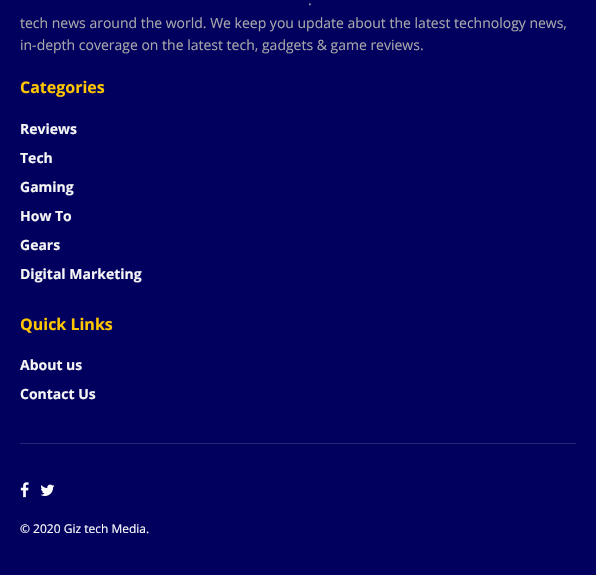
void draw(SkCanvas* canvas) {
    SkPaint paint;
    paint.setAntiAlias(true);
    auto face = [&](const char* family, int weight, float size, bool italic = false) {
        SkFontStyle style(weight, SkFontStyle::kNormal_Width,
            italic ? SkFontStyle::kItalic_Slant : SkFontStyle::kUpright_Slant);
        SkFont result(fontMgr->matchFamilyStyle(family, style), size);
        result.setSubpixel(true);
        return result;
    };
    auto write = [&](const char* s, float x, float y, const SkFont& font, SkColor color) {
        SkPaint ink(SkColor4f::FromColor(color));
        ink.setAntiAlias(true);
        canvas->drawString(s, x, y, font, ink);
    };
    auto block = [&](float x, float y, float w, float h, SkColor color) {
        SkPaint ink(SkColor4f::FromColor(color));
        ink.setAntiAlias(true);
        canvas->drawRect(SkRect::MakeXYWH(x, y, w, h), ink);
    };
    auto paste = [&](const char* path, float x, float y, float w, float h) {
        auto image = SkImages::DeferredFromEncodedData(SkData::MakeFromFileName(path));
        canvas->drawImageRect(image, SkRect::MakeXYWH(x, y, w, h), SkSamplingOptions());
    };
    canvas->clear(SkColorSetRGB(1, 0, 94));
    auto kFont1 = face("Open Sans", 400, 14);
    write(".", 308, 5, kFont1, SkColorSetRGB(168, 168, 170));
    write("tech news around the world. We keep you update about the latest technology news,", 20, 28, kFont1, SkColorSetRGB(168, 168, 170));
    write("in-depth coverage on the latest tech, gadgets & game reviews.", 20, 50, kFont1, SkColorSetRGB(168, 168, 170));
    auto kFont2 = face("Open Sans", 700, 16);
    write("Categories", 20, 93, kFont2, SkColorSetRGB(255, 198, 0));
    auto kFont3 = face("Open Sans", 700, 14);
    write("Reviews", 20, 134, kFont3, SkColorSetRGB(245, 245, 245));
    write("Tech", 20, 163, kFont3, SkColorSetRGB(245, 245, 245));
    write("Gaming", 20, 192, kFont3, SkColorSetRGB(245, 245, 245));
    write("How To", 20, 221, kFont3, SkColorSetRGB(245, 245, 245));
    write("Gears", 20, 250, kFont3, SkColorSetRGB(245, 245, 245));
    write("Digital Marketing", 20, 279, kFont3, SkColorSetRGB(245, 245, 245));
    write("Quick Links", 20, 330, kFont2, SkColorSetRGB(255, 198, 0));
    write("About us", 20, 370, kFont3, SkColorSetRGB(245, 245, 245));
    write("Contact Us", 20, 399, kFont3, SkColorSetRGB(245, 245, 245));
    block(20, 443, 556, 1, SkColorSetRGB(39, 38, 118));
    paste("pic1.png", 20, 482, 9, 16);
    paste("pic2.png", 40, 484, 15, 12);
    auto kFont4 = face("Open Sans", 400, 12);
    write("© 2020 Giz tech Media.", 20, 533, kFont4, SK_ColorWHITE);
}
